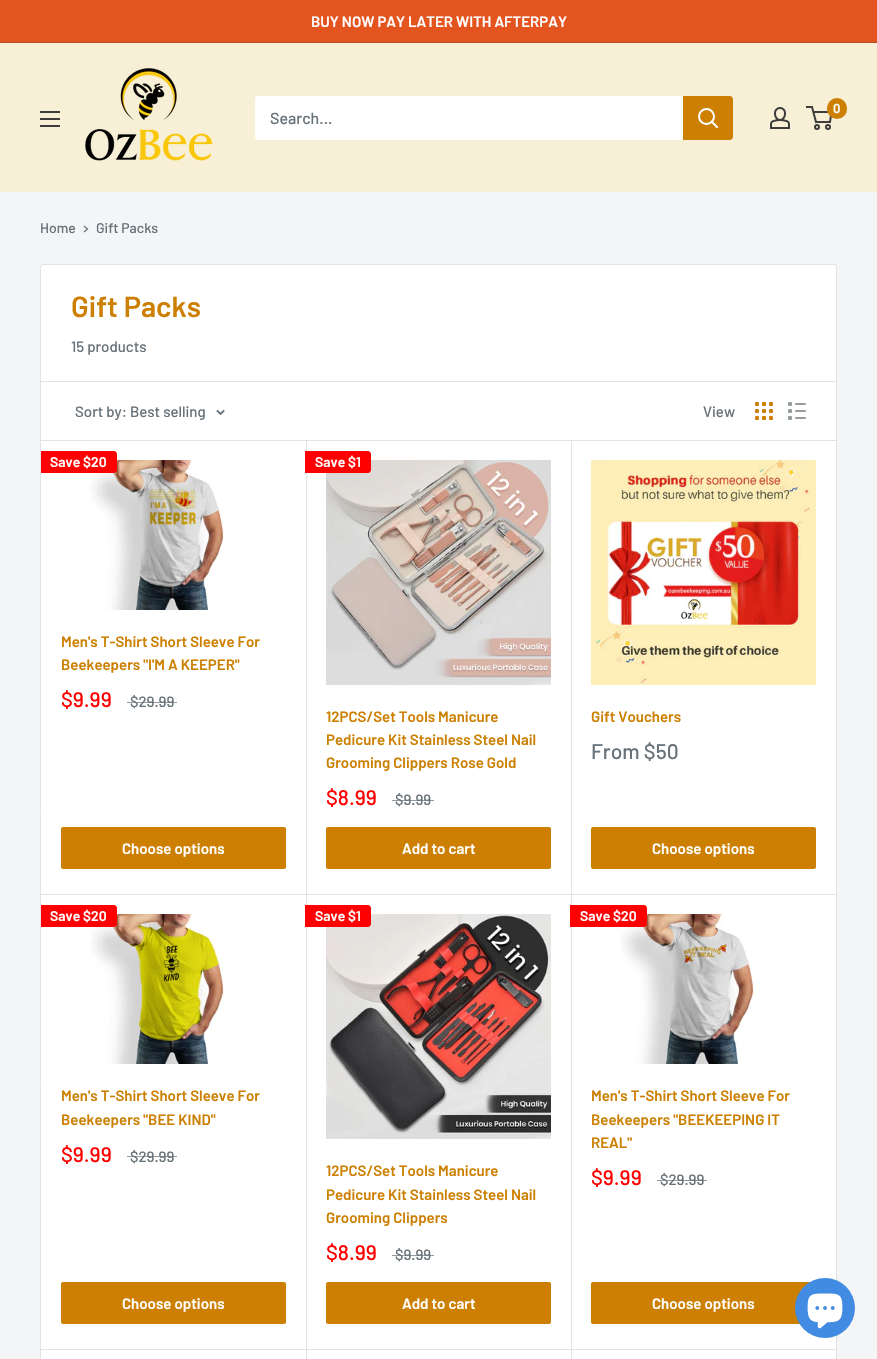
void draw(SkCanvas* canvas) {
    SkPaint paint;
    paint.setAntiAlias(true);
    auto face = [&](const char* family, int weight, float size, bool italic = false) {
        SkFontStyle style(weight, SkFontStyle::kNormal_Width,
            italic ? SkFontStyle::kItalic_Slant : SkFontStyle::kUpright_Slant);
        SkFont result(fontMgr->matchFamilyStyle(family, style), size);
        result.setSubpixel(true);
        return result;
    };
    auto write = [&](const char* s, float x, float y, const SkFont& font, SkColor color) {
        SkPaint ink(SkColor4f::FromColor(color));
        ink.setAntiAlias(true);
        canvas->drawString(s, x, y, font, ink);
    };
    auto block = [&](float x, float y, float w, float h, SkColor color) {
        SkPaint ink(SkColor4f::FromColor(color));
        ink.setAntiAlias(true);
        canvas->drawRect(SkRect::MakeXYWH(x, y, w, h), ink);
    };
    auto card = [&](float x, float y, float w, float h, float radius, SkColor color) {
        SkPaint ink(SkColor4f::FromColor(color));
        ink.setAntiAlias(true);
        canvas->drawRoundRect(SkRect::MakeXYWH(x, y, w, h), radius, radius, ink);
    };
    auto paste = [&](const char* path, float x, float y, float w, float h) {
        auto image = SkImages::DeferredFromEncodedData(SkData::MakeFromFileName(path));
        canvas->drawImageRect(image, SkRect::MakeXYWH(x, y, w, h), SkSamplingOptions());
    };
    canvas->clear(SkColorSetRGB(243, 245, 246));
    block(0, 0, 877, 42, SkColorSetRGB(228, 84, 31));
    block(0, 42, 877, 1, SkColorSetRGB(178, 77, 40));
    auto kFont1 = face("Barlow", 600, 15);
    write("BUY NOW PAY LATER WITH AFTERPAY", 311, 27, kFont1, SK_ColorWHITE);
    block(0, 43, 877, 149, SkColorSetRGB(248, 240, 214));
    paste("pic1.png", 85, 68, 128, 93);
    paste("pic2.png", 770, 107, 20, 22);
    paint.setStyle(SkPaint::kStroke_Style);
    paint.setStrokeWidth(2);
    paint.setColor(SkColorSetRGB(61, 61, 61));
    canvas->drawCircle(817, 127, 2, paint);
    canvas->drawCircle(828, 127, 2, paint);
    canvas->drawPath(SkPathBuilder().moveTo(813.5f, 112).lineTo(831.5f, 112).lineTo(830, 122).lineTo(816, 122).lineTo(812, 107).lineTo(806, 107).detach(), paint);
    card(827, 98, 20, 21, 10, SkColorSetRGB(204, 127, 0));
    auto kFont2 = face("Barlow", 600, 13);
    write("0", 833, 113, kFont2, SK_ColorWHITE);
    paste("pic3.png", 40, 111, 20, 16);
    card(255, 96, 478, 44, 3, SK_ColorWHITE);
    auto kFont3 = face("Barlow", 500, 16);
    write("Search...", 270, 124, kFont3, SkColorSetRGB(103, 114, 121));
    paint.setStyle(SkPaint::kFill_Style);
    paint.setColor(SkColorSetRGB(204, 127, 0));
    canvas->drawPath(SkPathBuilder().moveTo(683, 96).lineTo(730, 96).cubicTo(731.5f, 96, 733, 97.5f, 733, 99).lineTo(733, 137).cubicTo(733, 138.5f, 731.5f, 140, 730, 140).lineTo(683, 140).close().detach(), paint);
    paint.setStyle(SkPaint::kStroke_Style);
    paint.setStrokeCap(SkPaint::kSquare_Cap);
    paint.setColor(SK_ColorWHITE);
    canvas->drawPath(SkPathBuilder().moveTo(717, 127).lineTo(712, 122).detach(), paint);
    paint.setStrokeCap(SkPaint::kButt_Cap);
    canvas->drawCircle(706.5f, 116.5f, 7.5f, paint);
    auto kFont4 = face("Barlow", 500, 14);
    write("Home", 40, 233, kFont4, SkColorSetRGB(103, 114, 121));
    paint.setStrokeWidth(1.3f);
    paint.setStrokeCap(SkPaint::kSquare_Cap);
    paint.setColor(SkColorSetRGB(103, 114, 121));
    canvas->drawPath(SkPathBuilder().moveTo(84.5f, 226.5f).lineTo(87.5f, 229).lineTo(84.5f, 231.5f).detach(), paint);
    write("Gift Packs", 96, 233, kFont4, SkColorSetRGB(103, 114, 121));
    paint.setStyle(SkPaint::kFill_Style);
    paint.setColor(SK_ColorWHITE);
    canvas->drawRoundRect(SkRect::MakeXYWH(40.5f, 264.5f, 796, 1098), 2.5f, 2.5f, paint);
    paint.setStyle(SkPaint::kStroke_Style);
    paint.setStrokeWidth(1);
    paint.setStrokeCap(SkPaint::kButt_Cap);
    paint.setColor(SkColorSetRGB(225, 227, 228));
    canvas->drawRoundRect(SkRect::MakeXYWH(40.5f, 264.5f, 796, 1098), 2.5f, 2.5f, paint);
    auto kFont5 = face("Barlow", 600, 29);
    write("Gift Packs", 71, 317, kFont5, SkColorSetRGB(204, 127, 0));
    auto kFont6 = face("Barlow", 500, 15);
    write("15 products", 71, 352, kFont6, SkColorSetRGB(103, 114, 121));
    block(41, 381, 795, 1, SkColorSetRGB(225, 227, 228));
    block(41, 894, 795, 1, SkColorSetRGB(225, 227, 228));
    block(306, 440, 1, 909, SkColorSetRGB(225, 227, 228));
    block(571, 440, 1, 909, SkColorSetRGB(225, 227, 228));
    block(41, 440, 795, 1, SkColorSetRGB(225, 227, 228));
    write("Sort by: Best selling", 75, 417, kFont6, SkColorSetRGB(103, 114, 121));
    paint.setStrokeWidth(1.9f);
    paint.setStrokeCap(SkPaint::kSquare_Cap);
    paint.setColor(SkColorSetRGB(103, 114, 121));
    canvas->drawPath(SkPathBuilder().moveTo(223.5f, 411).lineTo(220.5f, 414).lineTo(217.5f, 411).detach(), paint);
    write("View", 703, 417, kFont6, SkColorSetRGB(103, 114, 121));
    paste("pic4.png", 755, 402, 18, 18);
    paste("pic5.png", 788, 402, 18, 18);
    paste("pic6.png", 90, 460, 134, 150);
    paint.setStyle(SkPaint::kFill_Style);
    paint.setColor(SkColorSetRGB(255, 0, 0));
    canvas->drawPath(SkPathBuilder().moveTo(41, 451).lineTo(114, 451).cubicTo(115.5f, 451, 117, 452.5f, 117, 454).lineTo(117, 470).cubicTo(117, 471.5f, 115.5f, 473, 114, 473).lineTo(41, 473).close().detach(), paint);
    auto kFont7 = face("Barlow", 600, 14);
    write("Save $20", 50, 467, kFont7, SK_ColorWHITE);
    write("Men's T-Shirt Short Sleeve For", 61, 647, kFont1, SkColorSetRGB(204, 127, 0));
    write("Beekeepers \"I'M A KEEPER\"", 61, 670, kFont1, SkColorSetRGB(204, 127, 0));
    auto kFont8 = face("Barlow", 500, 21);
    write("$9.99", 61, 707, kFont8, SkColorSetRGB(255, 0, 0));
    write("$29.99", 130, 707, kFont6, SkColorSetRGB(103, 114, 121));
    block(127, 702, 50, 1, SkColorSetARGB(179, 103, 114, 121));
    card(61, 827, 225, 42, 2, SkColorSetRGB(204, 127, 0));
    write("Choose options", 122, 854, kFont1, SK_ColorWHITE);
    paste("pic7.png", 326, 460, 225, 225);
    canvas->drawPath(SkPathBuilder().moveTo(305, 451).lineTo(368, 451).cubicTo(369.5f, 451, 371, 452.5f, 371, 454).lineTo(371, 470).cubicTo(371, 471.5f, 369.5f, 473, 368, 473).lineTo(305, 473).close().detach(), paint);
    write("Save $1", 315, 467, kFont7, SK_ColorWHITE);
    write("12PCS/Set Tools Manicure", 326, 722, kFont1, SkColorSetRGB(204, 127, 0));
    write("Pedicure Kit Stainless Steel Nail", 326, 745, kFont1, SkColorSetRGB(204, 127, 0));
    write("Grooming Clippers Rose Gold", 326, 768, kFont1, SkColorSetRGB(204, 127, 0));
    write("$8.99", 326, 805, kFont8, SkColorSetRGB(255, 0, 0));
    write("$9.99", 395, 805, kFont6, SkColorSetRGB(103, 114, 121));
    block(392, 800, 42, 1, SkColorSetARGB(179, 103, 114, 121));
    card(326, 827, 225, 42, 2, SkColorSetRGB(204, 127, 0));
    write("Add to cart", 402, 854, kFont1, SK_ColorWHITE);
    paste("pic8.png", 591, 460, 225, 225);
    write("Gift Vouchers", 591, 722, kFont1, SkColorSetRGB(204, 127, 0));
    write("From $50", 591, 759, kFont8, SkColorSetRGB(103, 114, 121));
    card(591, 827, 225, 42, 2, SkColorSetRGB(204, 127, 0));
    write("Choose options", 652, 854, kFont1, SK_ColorWHITE);
    paste("pic9.png", 90, 914, 134, 150);
    canvas->drawPath(SkPathBuilder().moveTo(41, 905).lineTo(114, 905).cubicTo(115.5f, 905, 117, 906.5f, 117, 908).lineTo(117, 924).cubicTo(117, 925.5f, 115.5f, 927, 114, 927).lineTo(41, 927).close().detach(), paint);
    write("Save $20", 50, 921, kFont7, SK_ColorWHITE);
    write("Men's T-Shirt Short Sleeve For", 61, 1101, kFont1, SkColorSetRGB(204, 127, 0));
    write("Beekeepers \"BEE KIND\"", 61, 1125, kFont1, SkColorSetRGB(204, 127, 0));
    write("$9.99", 61, 1162, kFont8, SkColorSetRGB(255, 0, 0));
    write("$29.99", 130, 1162, kFont6, SkColorSetRGB(103, 114, 121));
    block(127, 1156, 50, 1, SkColorSetARGB(179, 103, 114, 121));
    card(61, 1282, 225, 42, 2, SkColorSetRGB(204, 127, 0));
    write("Choose options", 122, 1309, kFont1, SK_ColorWHITE);
    block(41, 1349, 795, 1, SkColorSetRGB(225, 227, 228));
    paste("pic10.png", 326, 914, 225, 225);
    canvas->drawPath(SkPathBuilder().moveTo(305, 905).lineTo(368, 905).cubicTo(369.5f, 905, 371, 906.5f, 371, 908).lineTo(371, 924).cubicTo(371, 925.5f, 369.5f, 927, 368, 927).lineTo(305, 927).close().detach(), paint);
    write("Save $1", 315, 921, kFont7, SK_ColorWHITE);
    write("12PCS/Set Tools Manicure", 326, 1176, kFont1, SkColorSetRGB(204, 127, 0));
    write("Pedicure Kit Stainless Steel Nail", 326, 1200, kFont1, SkColorSetRGB(204, 127, 0));
    write("Grooming Clippers", 326, 1223, kFont1, SkColorSetRGB(204, 127, 0));
    write("$8.99", 326, 1260, kFont8, SkColorSetRGB(255, 0, 0));
    write("$9.99", 395, 1260, kFont6, SkColorSetRGB(103, 114, 121));
    block(392, 1255, 42, 1, SkColorSetARGB(179, 103, 114, 121));
    card(326, 1282, 225, 42, 2, SkColorSetRGB(204, 127, 0));
    write("Add to cart", 402, 1309, kFont1, SK_ColorWHITE);
    paste("pic11.png", 620, 914, 134, 150);
    canvas->drawPath(SkPathBuilder().moveTo(570, 905).lineTo(644, 905).cubicTo(645.5f, 905, 647, 906.5f, 647, 908).lineTo(647, 924).cubicTo(647, 925.5f, 645.5f, 927, 644, 927).lineTo(570, 927).close().detach(), paint);
    write("Save $20", 580, 921, kFont7, SK_ColorWHITE);
    write("Men's T-Shirt Short Sleeve For", 591, 1101, kFont1, SkColorSetRGB(204, 127, 0));
    write("Beekeepers \"BEEKEEPING IT", 591, 1125, kFont1, SkColorSetRGB(204, 127, 0));
    write("REAL\"", 591, 1148, kFont1, SkColorSetRGB(204, 127, 0));
    write("$9.99", 591, 1185, kFont8, SkColorSetRGB(255, 0, 0));
    write("$29.99", 660, 1185, kFont6, SkColorSetRGB(103, 114, 121));
    block(657, 1180, 50, 1, SkColorSetARGB(179, 103, 114, 121));
    card(591, 1282, 225, 42, 2, SkColorSetRGB(204, 127, 0));
    write("Choose options", 652, 1309, kFont1, SK_ColorWHITE);
    block(306, 1349, 1, 10, SkColorSetRGB(225, 227, 228));
    block(571, 1349, 1, 10, SkColorSetRGB(225, 227, 228));
    paint.setColor(SkColorSetRGB(66, 139, 226));
    canvas->drawCircle(825, 1308, 30, paint);
    paste("pic12.png", 807, 1293, 36, 36);
}
